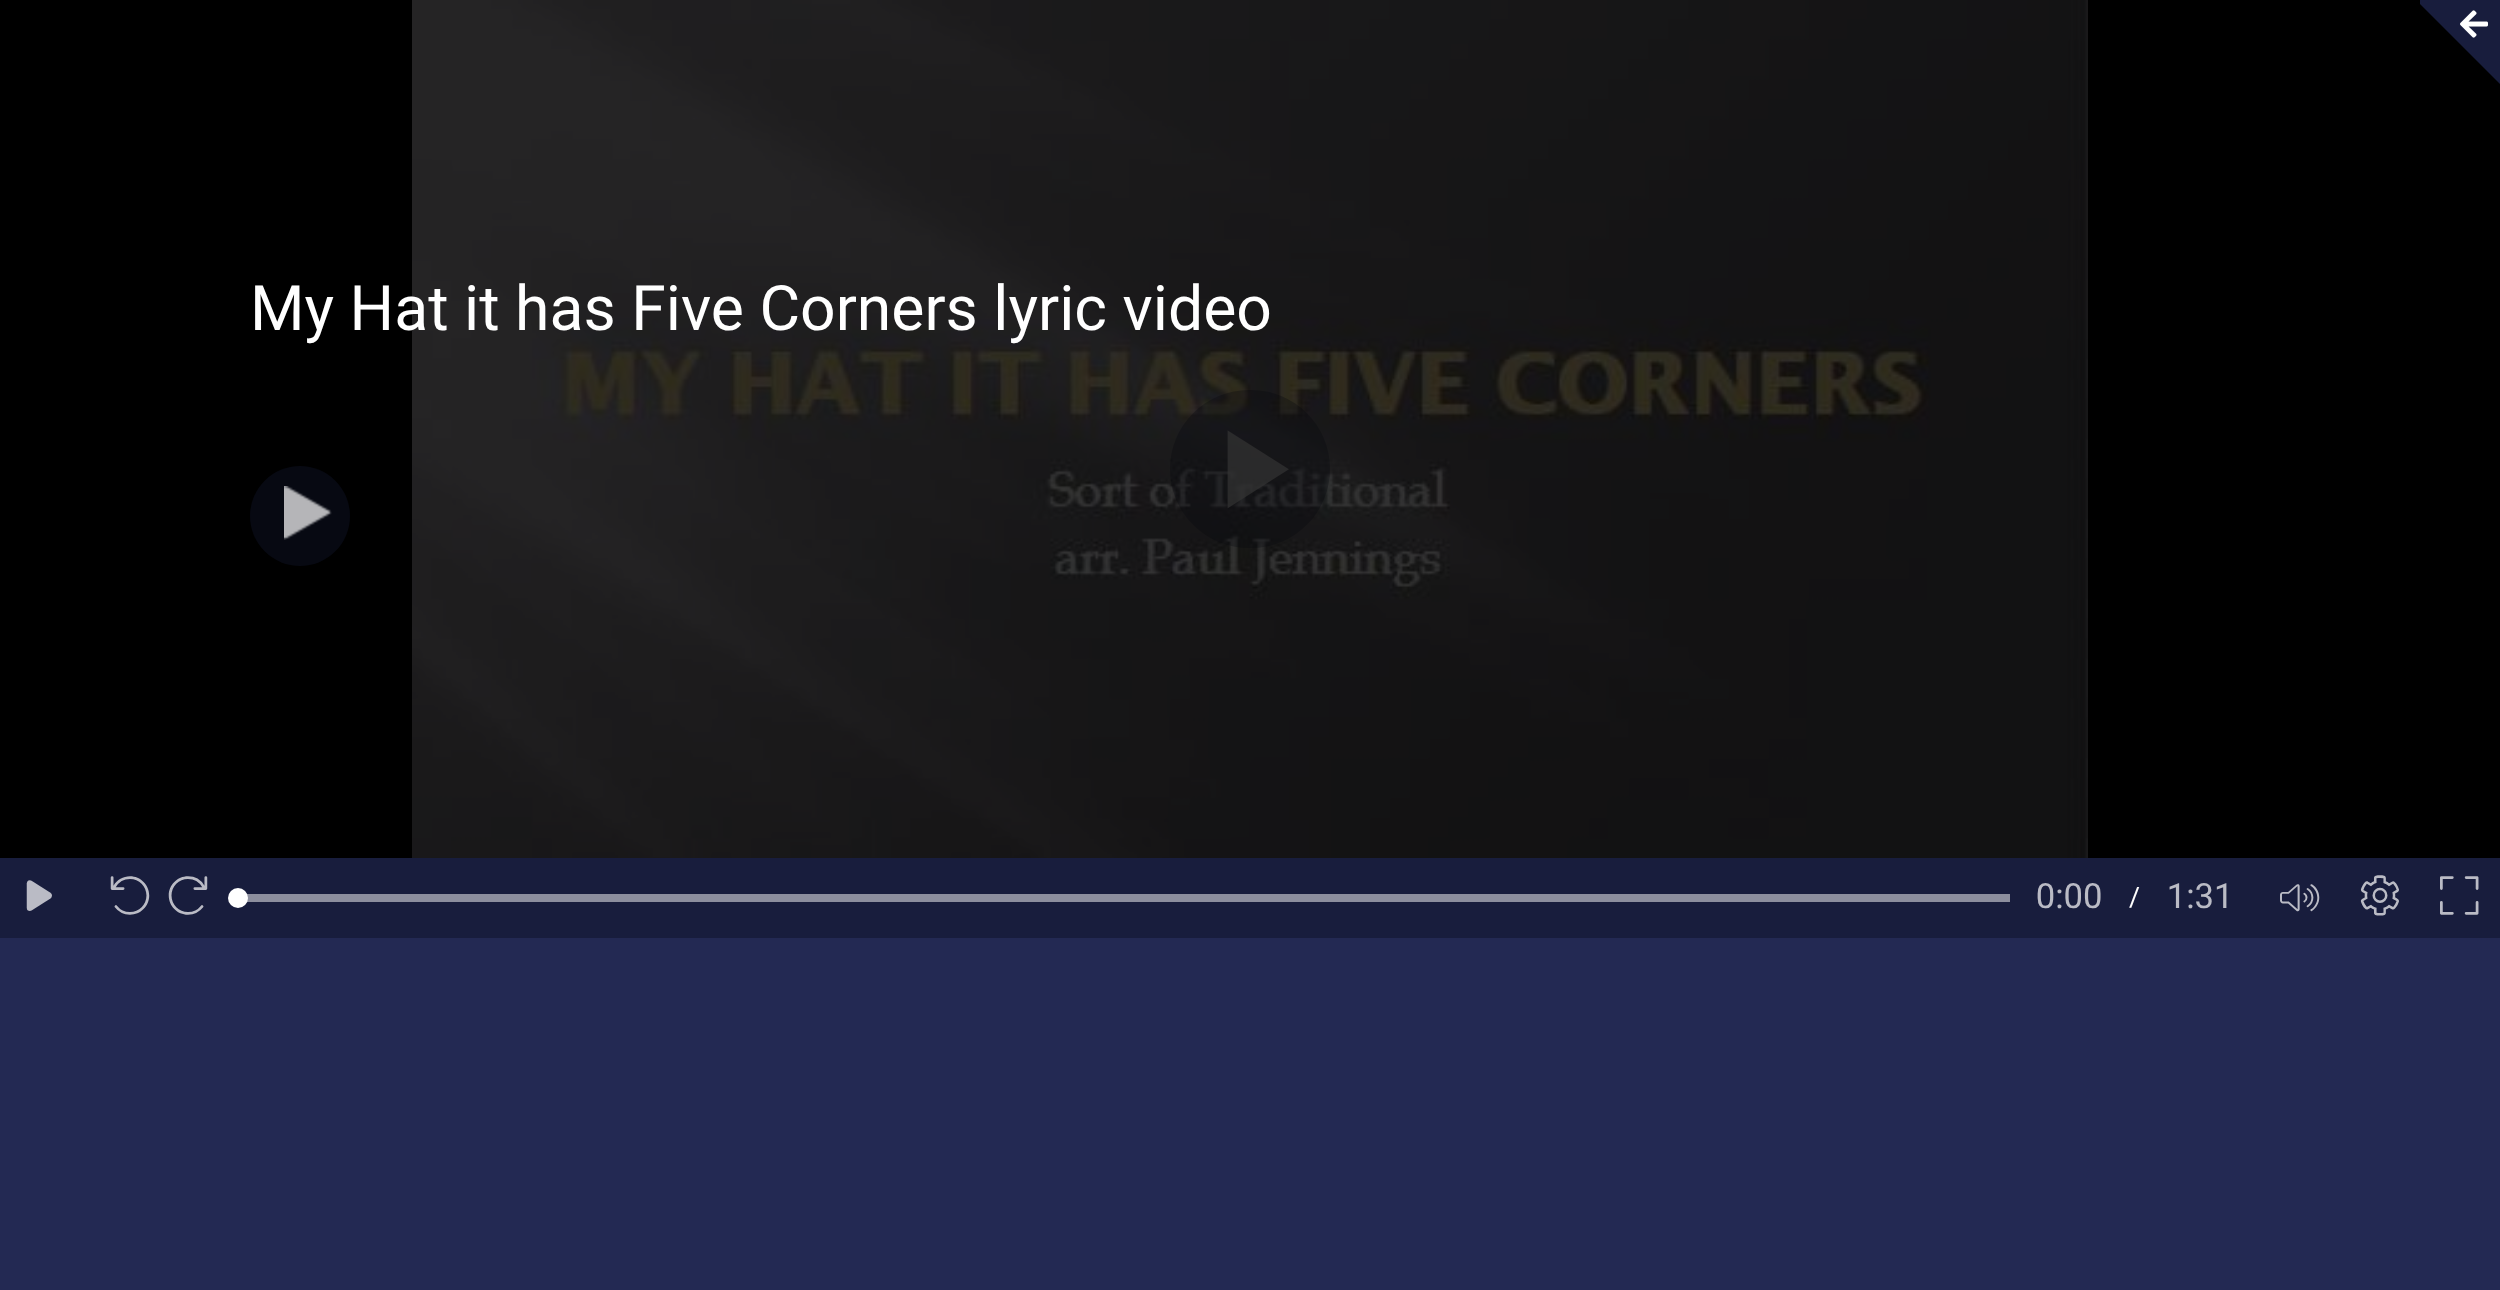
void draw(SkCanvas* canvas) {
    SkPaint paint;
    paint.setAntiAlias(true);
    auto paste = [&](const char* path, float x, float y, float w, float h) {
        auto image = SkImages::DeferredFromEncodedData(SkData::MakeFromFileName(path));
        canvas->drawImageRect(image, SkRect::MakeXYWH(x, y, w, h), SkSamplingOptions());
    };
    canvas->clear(SkColorSetRGB(35, 41, 83));
    paste("pic1.png", 0, 0, 2500, 938);
    paint.setColor(SkColorSetRGB(24, 29, 61));
    canvas->drawPath(SkPathBuilder().moveTo(2500, 0).lineTo(2500, 84).lineTo(2420, 4).lineTo(2420, 0).close().detach(), paint);
    paste("pic2.png", 2460, 10, 28, 28);
}
